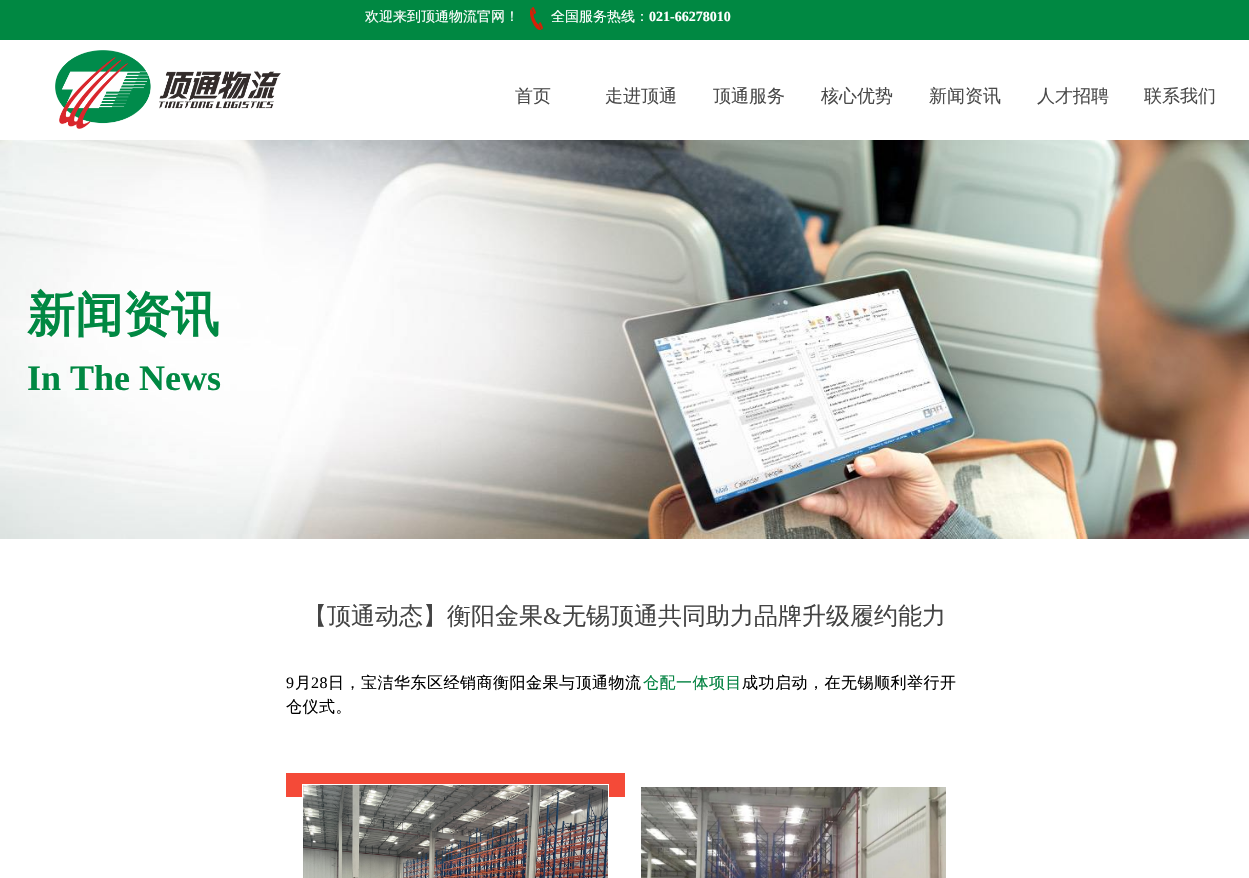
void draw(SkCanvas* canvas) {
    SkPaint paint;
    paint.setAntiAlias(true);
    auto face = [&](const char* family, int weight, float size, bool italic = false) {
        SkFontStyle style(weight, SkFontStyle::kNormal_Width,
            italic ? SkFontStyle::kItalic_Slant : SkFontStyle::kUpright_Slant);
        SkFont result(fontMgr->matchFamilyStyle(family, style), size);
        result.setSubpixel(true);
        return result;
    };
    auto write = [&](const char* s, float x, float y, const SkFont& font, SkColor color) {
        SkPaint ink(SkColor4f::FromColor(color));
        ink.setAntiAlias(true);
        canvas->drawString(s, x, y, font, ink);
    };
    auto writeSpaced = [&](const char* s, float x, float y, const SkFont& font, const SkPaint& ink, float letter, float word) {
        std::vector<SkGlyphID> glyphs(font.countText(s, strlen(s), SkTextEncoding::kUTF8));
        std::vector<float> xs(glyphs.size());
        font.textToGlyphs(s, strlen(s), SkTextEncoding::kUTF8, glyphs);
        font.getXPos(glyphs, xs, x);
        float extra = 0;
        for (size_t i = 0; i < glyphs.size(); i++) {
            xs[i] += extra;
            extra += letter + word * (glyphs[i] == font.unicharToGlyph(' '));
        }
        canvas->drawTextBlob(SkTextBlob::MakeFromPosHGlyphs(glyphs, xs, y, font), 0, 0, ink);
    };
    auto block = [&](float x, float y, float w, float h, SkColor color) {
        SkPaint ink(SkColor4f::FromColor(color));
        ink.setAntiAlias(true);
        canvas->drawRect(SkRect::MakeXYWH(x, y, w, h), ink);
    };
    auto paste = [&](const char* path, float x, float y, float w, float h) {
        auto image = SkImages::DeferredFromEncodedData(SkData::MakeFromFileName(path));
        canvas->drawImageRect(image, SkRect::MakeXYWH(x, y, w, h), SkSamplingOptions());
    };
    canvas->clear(SK_ColorWHITE);
    block(0, 0, 1249, 40, SkColorSetRGB(0, 136, 66));
    paste("pic1.png", 530, 7, 13, 23);
    canvas->save();
    canvas->clipRect(SkRect::MakeXYWH(365, 10, 413, 28));
    auto kFont1 = face("WenQuanYi Zen Hei", 500, 14);
    write("欢迎来到顶通物流官网！", 365, 21, kFont1, SK_ColorWHITE);
    write("全国服务热线：", 551, 21, kFont1, SK_ColorWHITE);
    canvas->restore();
    auto kFont2 = face("Liberation Serif", 700, 14);
    write("021-66278010", 649, 21, kFont2, SK_ColorWHITE);
    paste("pic2.png", 55, 50, 226, 79);
    auto kFont3 = face("WenQuanYi Zen Hei", 500, 18);
    write("首页", 515, 102, kFont3, SkColorSetRGB(74, 74, 74));
    write("走进顶通", 605, 102, kFont3, SkColorSetRGB(74, 74, 74));
    write("顶通服务", 713, 102, kFont3, SkColorSetRGB(74, 74, 74));
    write("核心优势", 821, 102, kFont3, SkColorSetRGB(74, 74, 74));
    write("新闻资讯", 929, 102, kFont3, SkColorSetRGB(74, 74, 74));
    write("人才招聘", 1037, 102, kFont3, SkColorSetRGB(74, 74, 74));
    write("联系我们", 1144, 102, kFont3, SkColorSetRGB(74, 74, 74));
    paste("pic3.png", 0, 140, 1249, 399);
    auto kFont4 = face("WenQuanYi Zen Hei", 700, 48);
    write("新闻资讯", 27, 331, kFont4, SkColorSetRGB(0, 136, 66));
    auto kFont5 = face("Liberation Serif", 700, 36);
    write("In The News", 27, 390, kFont5, SkColorSetRGB(0, 136, 66));
    auto kFont6 = face("WenQuanYi Zen Hei", 500, 24);
    write("【顶通动态】衡阳金果", 303, 624, kFont6, SkColorSetRGB(68, 68, 68));
    auto kFont7 = face("Liberation Serif", 400, 24);
    write("&", 543, 624, kFont7, SkColorSetRGB(68, 68, 68));
    write("无锡顶通共同助力品牌升级履约能力", 562, 624, kFont6, SkColorSetRGB(68, 68, 68));
    auto kFont8 = face("Liberation Serif", 400, 16);
    paint.setColor(SK_ColorBLACK);
    writeSpaced("9", 286, 688, kFont8, paint, 0.5f, 0);
    auto kFont9 = face("WenQuanYi Zen Hei", 500, 16);
    writeSpaced("月", 295, 688, kFont9, paint, 0.5f, 0);
    writeSpaced("28", 311, 688, kFont8, paint, 0.5f, 0);
    writeSpaced("日，宝洁华东区经销商衡阳金果与顶通物流", 328, 688, kFont9, paint, 0.5f, 0);
    paint.setColor(SkColorSetRGB(0, 129, 63));
    writeSpaced("仓配一体项目", 643, 688, kFont9, paint, 0.5f, 0);
    paint.setColor(SK_ColorBLACK);
    writeSpaced("成功启动，在无锡顺利举行开", 742, 688, kFont9, paint, 0.5f, 0);
    writeSpaced("仓仪式。", 286, 712, kFont9, paint, 0.5f, 0);
    block(286, 773, 339, 24, SkColorSetRGB(244, 74, 56));
    paint.setStyle(SkPaint::kStroke_Style);
    paint.setStrokeWidth(1);
    paint.setColor(SK_ColorWHITE);
    canvas->drawRect(SkRect::MakeXYWH(302.5f, 784.5f, 306, 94), paint);
    paste("pic4.png", 303, 785, 305, 93);
    paste("pic5.png", 641, 787, 305, 91);
}
